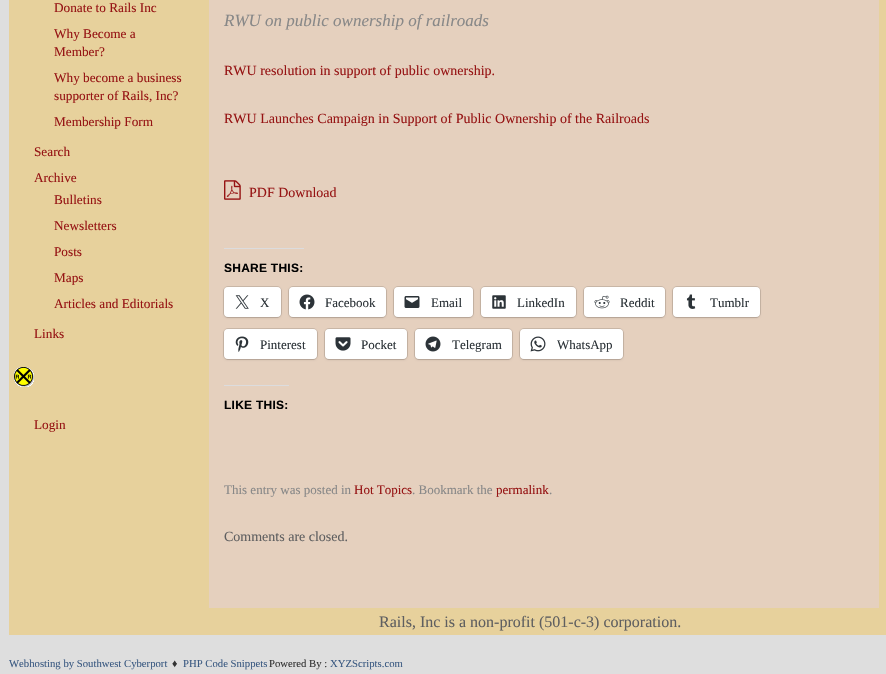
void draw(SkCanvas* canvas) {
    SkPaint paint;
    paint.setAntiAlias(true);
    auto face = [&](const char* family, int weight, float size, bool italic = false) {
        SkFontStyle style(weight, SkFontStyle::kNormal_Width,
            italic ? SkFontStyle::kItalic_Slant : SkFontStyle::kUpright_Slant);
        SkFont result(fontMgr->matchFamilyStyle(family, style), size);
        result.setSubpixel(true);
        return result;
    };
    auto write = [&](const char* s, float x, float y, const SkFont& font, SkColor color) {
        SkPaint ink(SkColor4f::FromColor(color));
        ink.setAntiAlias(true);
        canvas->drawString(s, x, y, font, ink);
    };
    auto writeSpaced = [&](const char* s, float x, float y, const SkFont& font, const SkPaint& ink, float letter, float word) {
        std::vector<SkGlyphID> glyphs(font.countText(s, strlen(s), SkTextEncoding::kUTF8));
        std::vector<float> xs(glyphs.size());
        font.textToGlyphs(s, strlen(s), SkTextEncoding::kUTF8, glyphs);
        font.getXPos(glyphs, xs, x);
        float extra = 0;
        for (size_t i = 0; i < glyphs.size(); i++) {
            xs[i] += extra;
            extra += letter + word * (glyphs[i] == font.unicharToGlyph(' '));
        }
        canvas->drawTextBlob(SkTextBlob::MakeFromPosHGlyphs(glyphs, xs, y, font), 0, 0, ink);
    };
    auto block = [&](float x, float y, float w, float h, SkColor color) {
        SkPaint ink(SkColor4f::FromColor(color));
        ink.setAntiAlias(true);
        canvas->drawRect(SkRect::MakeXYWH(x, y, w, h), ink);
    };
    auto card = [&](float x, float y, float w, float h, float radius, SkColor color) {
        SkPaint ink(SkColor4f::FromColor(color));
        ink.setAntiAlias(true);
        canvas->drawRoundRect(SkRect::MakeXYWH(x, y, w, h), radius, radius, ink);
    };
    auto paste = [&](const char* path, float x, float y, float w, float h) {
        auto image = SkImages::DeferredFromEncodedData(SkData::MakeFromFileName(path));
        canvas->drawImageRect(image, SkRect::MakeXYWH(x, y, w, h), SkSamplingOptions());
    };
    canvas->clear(SkColorSetRGB(222, 222, 222));
    block(9, 0, 877, 635, SkColorSetRGB(231, 209, 156));
    auto kFont1 = face("Liberation Serif", 400, 13.25f);
    write("Donate to Rails Inc", 54, 12, kFont1, SkColorSetRGB(150, 20, 20));
    write("Why Become a", 54, 38, kFont1, SkColorSetRGB(150, 20, 20));
    write("Member?", 54, 56, kFont1, SkColorSetRGB(150, 20, 20));
    write("Why become a business", 54, 82, kFont1, SkColorSetRGB(150, 20, 20));
    write("supporter of Rails, Inc?", 54, 100, kFont1, SkColorSetRGB(150, 20, 20));
    write("Membership Form", 54, 126, kFont1, SkColorSetRGB(150, 20, 20));
    write("Search", 34, 156, kFont1, SkColorSetRGB(150, 20, 20));
    write("Archive", 34, 182, kFont1, SkColorSetRGB(150, 20, 20));
    write("Bulletins", 54, 204, kFont1, SkColorSetRGB(150, 20, 20));
    write("Newsletters", 54, 230, kFont1, SkColorSetRGB(150, 20, 20));
    write("Posts", 54, 256, kFont1, SkColorSetRGB(150, 20, 20));
    write("Maps", 54, 282, kFont1, SkColorSetRGB(150, 20, 20));
    write("Articles and Editorials", 54, 308, kFont1, SkColorSetRGB(150, 20, 20));
    write("Links", 34, 338, kFont1, SkColorSetRGB(150, 20, 20));
    paste("pic1.png", 14, 367, 20, 20);
    write("Login", 34, 429, kFont1, SkColorSetRGB(150, 20, 20));
    block(209, 0, 670, 608, SkColorSetRGB(229, 208, 190));
    auto kFont2 = face("Liberation Serif", 400, 17, true);
    write("RWU on public ownership of railroads", 224, 26, kFont2, SkColorSetRGB(136, 136, 136));
    auto kFont3 = face("Liberation Serif", 400, 14);
    write("RWU resolution in support of public ownership.", 224, 75, kFont3, SkColorSetRGB(150, 20, 20));
    write("RWU Launches Campaign in Support of Public Ownership of the Railroads", 224, 123, kFont3, SkColorSetRGB(150, 20, 20));
    paste("pic2.png", 224, 180, 17, 20);
    write("PDF Download", 249, 197, kFont3, SkColorSetRGB(150, 20, 20));
    block(224, 248, 80, 1, SkColorSetRGB(220, 220, 222));
    auto kFont4 = face("Liberation Sans", 700, 12);
    paint.setColor(SK_ColorBLACK);
    writeSpaced("SHARE THIS:", 224, 272, kFont4, paint, 0.25f, 0);
    paint.setStyle(SkPaint::kStroke_Style);
    paint.setStrokeWidth(1);
    paint.setColor(SkColorSetRGB(202, 183, 167));
    canvas->drawRoundRect(SkRect::MakeXYWH(223.5f, 286.5f, 58, 31), 4.5f, 4.5f, paint);
    paint.setStyle(SkPaint::kFill_Style);
    paint.setColor(SkColorSetARGB(31, 0, 0, 0));
    paint.setMaskFilter(SkMaskFilter::MakeBlur(kNormal_SkBlurStyle, 1));
    canvas->drawRoundRect(SkRect::MakeXYWH(224, 288, 57, 30), 4, 4, paint);
    paint.setMaskFilter(nullptr);
    card(224, 287, 57, 30, 4, SK_ColorWHITE);
    paste("pic3.png", 235, 295, 14, 14);
    auto kFont5 = face("Liberation Serif", 400, 13);
    write("X", 260, 307, kFont5, SkColorSetRGB(44, 51, 56));
    paint.setStyle(SkPaint::kStroke_Style);
    paint.setColor(SkColorSetRGB(202, 183, 167));
    canvas->drawRoundRect(SkRect::MakeXYWH(288.5f, 286.5f, 98, 31), 4.5f, 4.5f, paint);
    paint.setStyle(SkPaint::kFill_Style);
    paint.setColor(SkColorSetARGB(31, 0, 0, 0));
    paint.setMaskFilter(SkMaskFilter::MakeBlur(kNormal_SkBlurStyle, 1));
    canvas->drawRoundRect(SkRect::MakeXYWH(289, 288, 97, 30), 4, 4, paint);
    paint.setMaskFilter(nullptr);
    card(289, 287, 97, 30, 4, SK_ColorWHITE);
    paste("pic4.png", 299, 294, 16, 16);
    write("Facebook", 325, 307, kFont5, SkColorSetRGB(44, 51, 56));
    paint.setStyle(SkPaint::kStroke_Style);
    paint.setColor(SkColorSetRGB(202, 183, 167));
    canvas->drawRoundRect(SkRect::MakeXYWH(393.5f, 286.5f, 80, 31), 4.5f, 4.5f, paint);
    paint.setStyle(SkPaint::kFill_Style);
    paint.setColor(SkColorSetARGB(31, 0, 0, 0));
    paint.setMaskFilter(SkMaskFilter::MakeBlur(kNormal_SkBlurStyle, 1));
    canvas->drawRoundRect(SkRect::MakeXYWH(394, 288, 79, 30), 4, 4, paint);
    paint.setMaskFilter(nullptr);
    card(394, 287, 79, 30, 4, SK_ColorWHITE);
    paste("pic5.png", 404, 296, 16, 12);
    write("Email", 431, 307, kFont5, SkColorSetRGB(44, 51, 56));
    paint.setStyle(SkPaint::kStroke_Style);
    paint.setColor(SkColorSetRGB(202, 183, 167));
    canvas->drawRoundRect(SkRect::MakeXYWH(480.5f, 286.5f, 96, 31), 4.5f, 4.5f, paint);
    paint.setStyle(SkPaint::kFill_Style);
    paint.setColor(SkColorSetARGB(31, 0, 0, 0));
    paint.setMaskFilter(SkMaskFilter::MakeBlur(kNormal_SkBlurStyle, 1));
    canvas->drawRoundRect(SkRect::MakeXYWH(481, 288, 95, 30), 4, 4, paint);
    paint.setMaskFilter(nullptr);
    card(481, 287, 95, 30, 4, SK_ColorWHITE);
    paste("pic6.png", 492, 295, 14, 14);
    write("LinkedIn", 517, 307, kFont5, SkColorSetRGB(44, 51, 56));
    paint.setStyle(SkPaint::kStroke_Style);
    paint.setColor(SkColorSetRGB(202, 183, 167));
    canvas->drawRoundRect(SkRect::MakeXYWH(583.5f, 286.5f, 82, 31), 4.5f, 4.5f, paint);
    paint.setStyle(SkPaint::kFill_Style);
    paint.setColor(SkColorSetARGB(31, 0, 0, 0));
    paint.setMaskFilter(SkMaskFilter::MakeBlur(kNormal_SkBlurStyle, 1));
    canvas->drawRoundRect(SkRect::MakeXYWH(584, 288, 81, 30), 4, 4, paint);
    paint.setMaskFilter(nullptr);
    card(584, 287, 81, 30, 4, SK_ColorWHITE);
    paste("pic7.png", 594, 295, 16, 14);
    write("Reddit", 620, 307, kFont5, SkColorSetRGB(44, 51, 56));
    paint.setStyle(SkPaint::kStroke_Style);
    paint.setColor(SkColorSetRGB(202, 183, 167));
    canvas->drawRoundRect(SkRect::MakeXYWH(672.5f, 286.5f, 88, 31), 4.5f, 4.5f, paint);
    paint.setStyle(SkPaint::kFill_Style);
    paint.setColor(SkColorSetARGB(31, 0, 0, 0));
    paint.setMaskFilter(SkMaskFilter::MakeBlur(kNormal_SkBlurStyle, 1));
    canvas->drawRoundRect(SkRect::MakeXYWH(673, 288, 87, 30), 4, 4, paint);
    paint.setMaskFilter(nullptr);
    card(673, 287, 87, 30, 4, SK_ColorWHITE);
    paste("pic8.png", 686, 294, 10, 15);
    write("Tumblr", 710, 307, kFont5, SkColorSetRGB(44, 51, 56));
    paint.setStyle(SkPaint::kStroke_Style);
    paint.setColor(SkColorSetRGB(202, 183, 167));
    canvas->drawRoundRect(SkRect::MakeXYWH(223.5f, 328.5f, 94, 31), 4.5f, 4.5f, paint);
    paint.setStyle(SkPaint::kFill_Style);
    paint.setColor(SkColorSetARGB(31, 0, 0, 0));
    paint.setMaskFilter(SkMaskFilter::MakeBlur(kNormal_SkBlurStyle, 1));
    canvas->drawRoundRect(SkRect::MakeXYWH(224, 330, 93, 30), 4, 4, paint);
    paint.setMaskFilter(nullptr);
    card(224, 329, 93, 30, 4, SK_ColorWHITE);
    paste("pic9.png", 235, 336, 14, 16);
    write("Pinterest", 260, 349, kFont5, SkColorSetRGB(44, 51, 56));
    paint.setStyle(SkPaint::kStroke_Style);
    paint.setColor(SkColorSetRGB(202, 183, 167));
    canvas->drawRoundRect(SkRect::MakeXYWH(324.5f, 328.5f, 83, 31), 4.5f, 4.5f, paint);
    paint.setStyle(SkPaint::kFill_Style);
    paint.setColor(SkColorSetARGB(31, 0, 0, 0));
    paint.setMaskFilter(SkMaskFilter::MakeBlur(kNormal_SkBlurStyle, 1));
    canvas->drawRoundRect(SkRect::MakeXYWH(325, 330, 82, 30), 4, 4, paint);
    paint.setMaskFilter(nullptr);
    card(325, 329, 82, 30, 4, SK_ColorWHITE);
    paste("pic10.png", 335, 337, 16, 14);
    write("Pocket", 361, 349, kFont5, SkColorSetRGB(44, 51, 56));
    paint.setStyle(SkPaint::kStroke_Style);
    paint.setColor(SkColorSetRGB(202, 183, 167));
    canvas->drawRoundRect(SkRect::MakeXYWH(414.5f, 328.5f, 98, 31), 4.5f, 4.5f, paint);
    paint.setStyle(SkPaint::kFill_Style);
    paint.setColor(SkColorSetARGB(31, 0, 0, 0));
    paint.setMaskFilter(SkMaskFilter::MakeBlur(kNormal_SkBlurStyle, 1));
    canvas->drawRoundRect(SkRect::MakeXYWH(415, 330, 97, 30), 4, 4, paint);
    paint.setMaskFilter(nullptr);
    card(415, 329, 97, 30, 4, SK_ColorWHITE);
    paste("pic11.png", 425, 336, 16, 16);
    write("Telegram", 452, 349, kFont5, SkColorSetRGB(44, 51, 56));
    paint.setStyle(SkPaint::kStroke_Style);
    paint.setColor(SkColorSetRGB(202, 183, 167));
    canvas->drawRoundRect(SkRect::MakeXYWH(519.5f, 328.5f, 104, 31), 4.5f, 4.5f, paint);
    paint.setStyle(SkPaint::kFill_Style);
    paint.setColor(SkColorSetARGB(31, 0, 0, 0));
    paint.setMaskFilter(SkMaskFilter::MakeBlur(kNormal_SkBlurStyle, 1));
    canvas->drawRoundRect(SkRect::MakeXYWH(520, 330, 103, 30), 4, 4, paint);
    paint.setMaskFilter(nullptr);
    card(520, 329, 103, 30, 4, SK_ColorWHITE);
    paste("pic12.png", 530, 336, 16, 16);
    write("WhatsApp", 557, 349, kFont5, SkColorSetRGB(44, 51, 56));
    block(224, 385, 65, 1, SkColorSetRGB(220, 220, 222));
    paint.setColor(SK_ColorBLACK);
    writeSpaced("LIKE THIS:", 224, 409, kFont4, paint, 0.25f, 0);
    write("This entry was posted in", 224, 494, kFont5, SkColorSetRGB(136, 136, 136));
    write("Hot Topics", 354, 494, kFont5, SkColorSetRGB(150, 20, 20));
    write(". Bookmark the", 412, 494, kFont5, SkColorSetRGB(136, 136, 136));
    write("permalink", 496, 494, kFont5, SkColorSetRGB(150, 20, 20));
    write(".", 549, 494, kFont5, SkColorSetRGB(136, 136, 136));
    write("Comments are closed.", 224, 541, kFont3, SkColorSetRGB(95, 95, 96));
    auto kFont6 = face("Liberation Serif", 400, 16);
    write("Rails, Inc is a non-profit (501-c-3) corporation.", 379, 627, kFont6, SkColorSetRGB(95, 95, 96));
    auto kFont7 = face("Liberation Serif", 400, 10.7f);
    write("Webhosting by Southwest Cyberport", 9, 667, kFont7, SkColorSetRGB(59, 90, 130));
    write("♦", 172, 667, kFont7, SkColorSetRGB(51, 51, 51));
    write("PHP Code Snippets", 183, 667, kFont7, SkColorSetRGB(59, 90, 130));
    write("Powered By :", 269, 667, kFont7, SkColorSetRGB(51, 51, 51));
    write("XYZScripts.com", 330, 667, kFont7, SkColorSetRGB(59, 90, 130));
}
